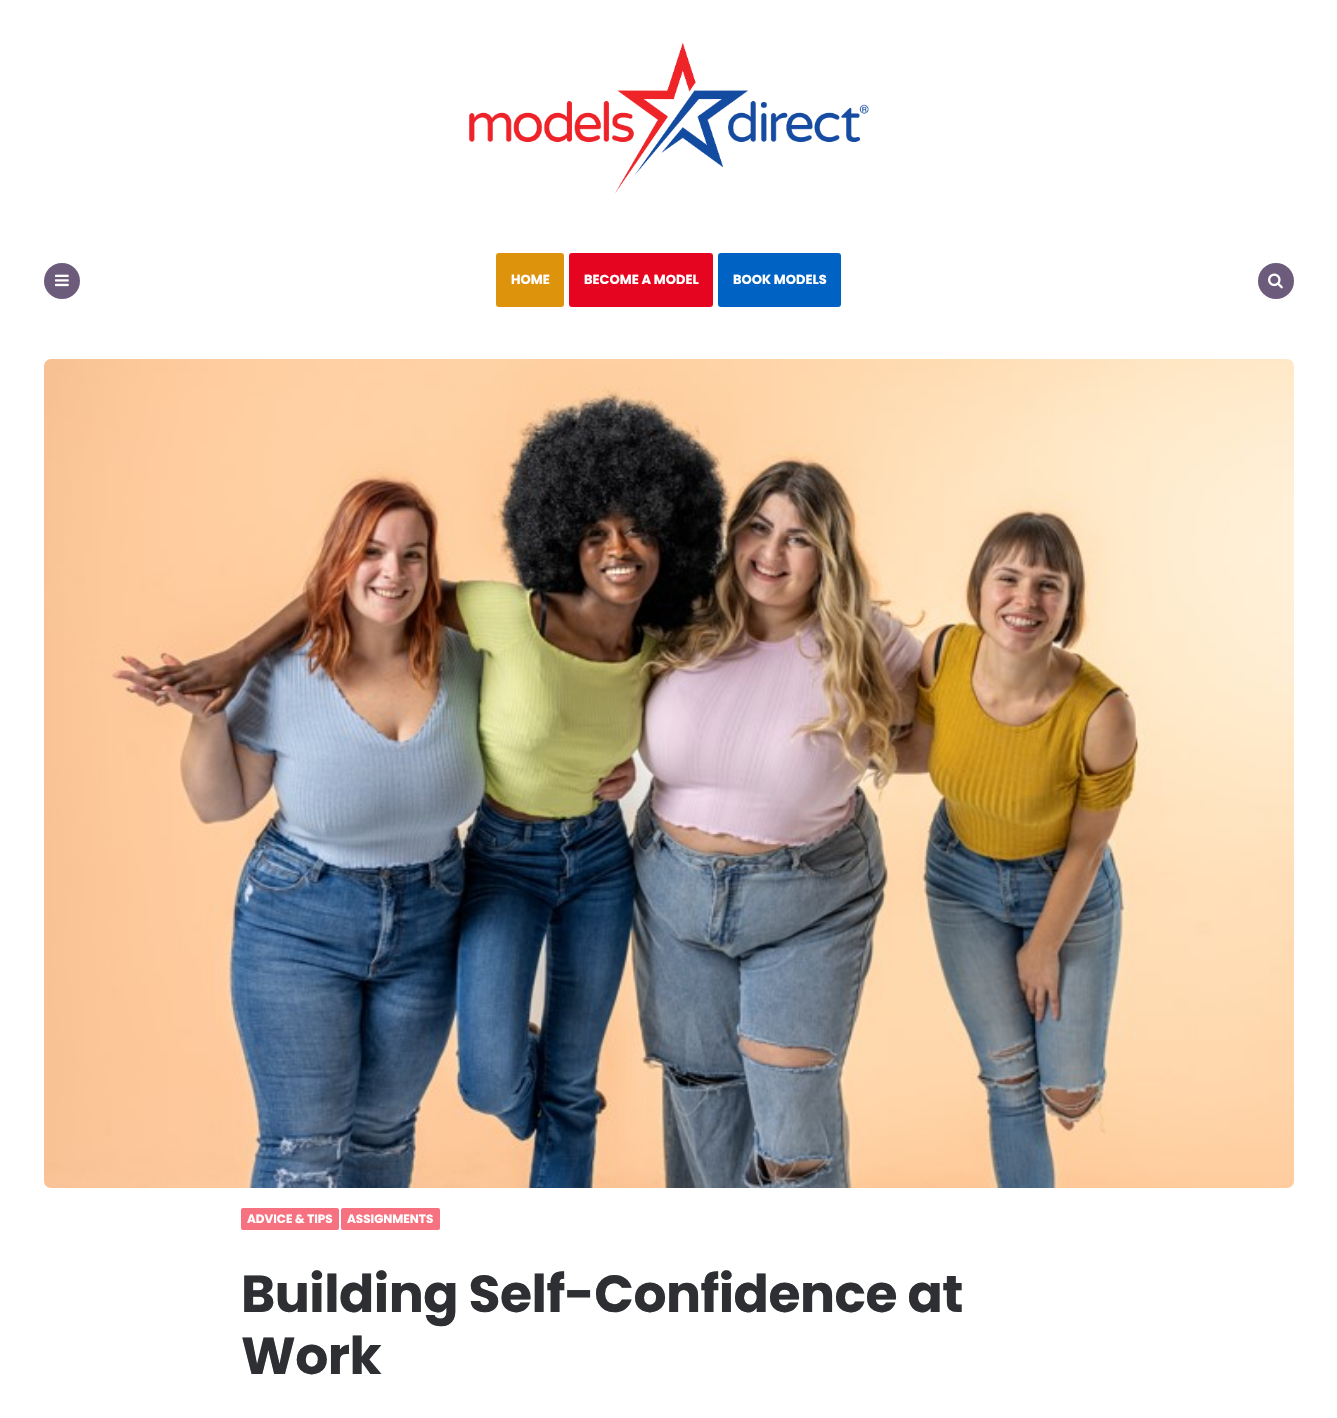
void draw(SkCanvas* canvas) {
    SkPaint paint;
    paint.setAntiAlias(true);
    auto face = [&](const char* family, int weight, float size, bool italic = false) {
        SkFontStyle style(weight, SkFontStyle::kNormal_Width,
            italic ? SkFontStyle::kItalic_Slant : SkFontStyle::kUpright_Slant);
        SkFont result(fontMgr->matchFamilyStyle(family, style), size);
        result.setSubpixel(true);
        return result;
    };
    auto write = [&](const char* s, float x, float y, const SkFont& font, SkColor color) {
        SkPaint ink(SkColor4f::FromColor(color));
        ink.setAntiAlias(true);
        canvas->drawString(s, x, y, font, ink);
    };
    auto writeSpaced = [&](const char* s, float x, float y, const SkFont& font, const SkPaint& ink, float letter, float word) {
        std::vector<SkGlyphID> glyphs(font.countText(s, strlen(s), SkTextEncoding::kUTF8));
        std::vector<float> xs(glyphs.size());
        font.textToGlyphs(s, strlen(s), SkTextEncoding::kUTF8, glyphs);
        font.getXPos(glyphs, xs, x);
        float extra = 0;
        for (size_t i = 0; i < glyphs.size(); i++) {
            xs[i] += extra;
            extra += letter + word * (glyphs[i] == font.unicharToGlyph(' '));
        }
        canvas->drawTextBlob(SkTextBlob::MakeFromPosHGlyphs(glyphs, xs, y, font), 0, 0, ink);
    };
    auto card = [&](float x, float y, float w, float h, float radius, SkColor color) {
        SkPaint ink(SkColor4f::FromColor(color));
        ink.setAntiAlias(true);
        canvas->drawRoundRect(SkRect::MakeXYWH(x, y, w, h), radius, radius, ink);
    };
    auto paste = [&](const char* path, float x, float y, float w, float h) {
        auto image = SkImages::DeferredFromEncodedData(SkData::MakeFromFileName(path));
        canvas->drawImageRect(image, SkRect::MakeXYWH(x, y, w, h), SkSamplingOptions());
    };
    canvas->clear(SK_ColorWHITE);
    paste("pic1.png", 469, 43, 400, 151);
    paint.setColor(SkColorSetRGB(108, 91, 123));
    canvas->drawCircle(62, 281, 18, paint);
    paste("pic2.png", 55, 274, 14, 13);
    card(496, 253, 68, 54, 3, SkColorSetRGB(222, 147, 12));
    auto kFont1 = face("Poppins", 700, 13);
    write("HOME", 511, 284, kFont1, SK_ColorWHITE);
    card(569, 253, 144, 54, 3, SkColorSetRGB(230, 5, 32));
    write("BECOME A MODEL", 584, 284, kFont1, SK_ColorWHITE);
    card(718, 253, 123, 54, 3, SkColorSetRGB(0, 98, 194));
    write("BOOK MODELS", 733, 284, kFont1, SK_ColorWHITE);
    canvas->drawCircle(1276, 281, 18, paint);
    paste("pic3.png", 1268, 273, 15, 16);
    paste("pic4.png", 44, 359, 1250, 829);
    card(241, 1208, 98, 22, 2, SkColorSetRGB(246, 114, 128));
    auto kFont2 = face("Poppins", 700, 12);
    write("ADVICE & TIPS", 247, 1223, kFont2, SK_ColorWHITE);
    card(341, 1208, 99, 22, 2, SkColorSetRGB(246, 114, 128));
    write("ASSIGNMENTS", 347, 1223, kFont2, SK_ColorWHITE);
    auto kFont3 = face("Poppins", 700, 52);
    paint.setColor(SkColorSetRGB(46, 47, 51));
    writeSpaced("Building Self-Confidence at", 241, 1312, kFont3, paint, -0.5f, 0);
    writeSpaced("Work", 241, 1374, kFont3, paint, -0.5f, 0);
}
